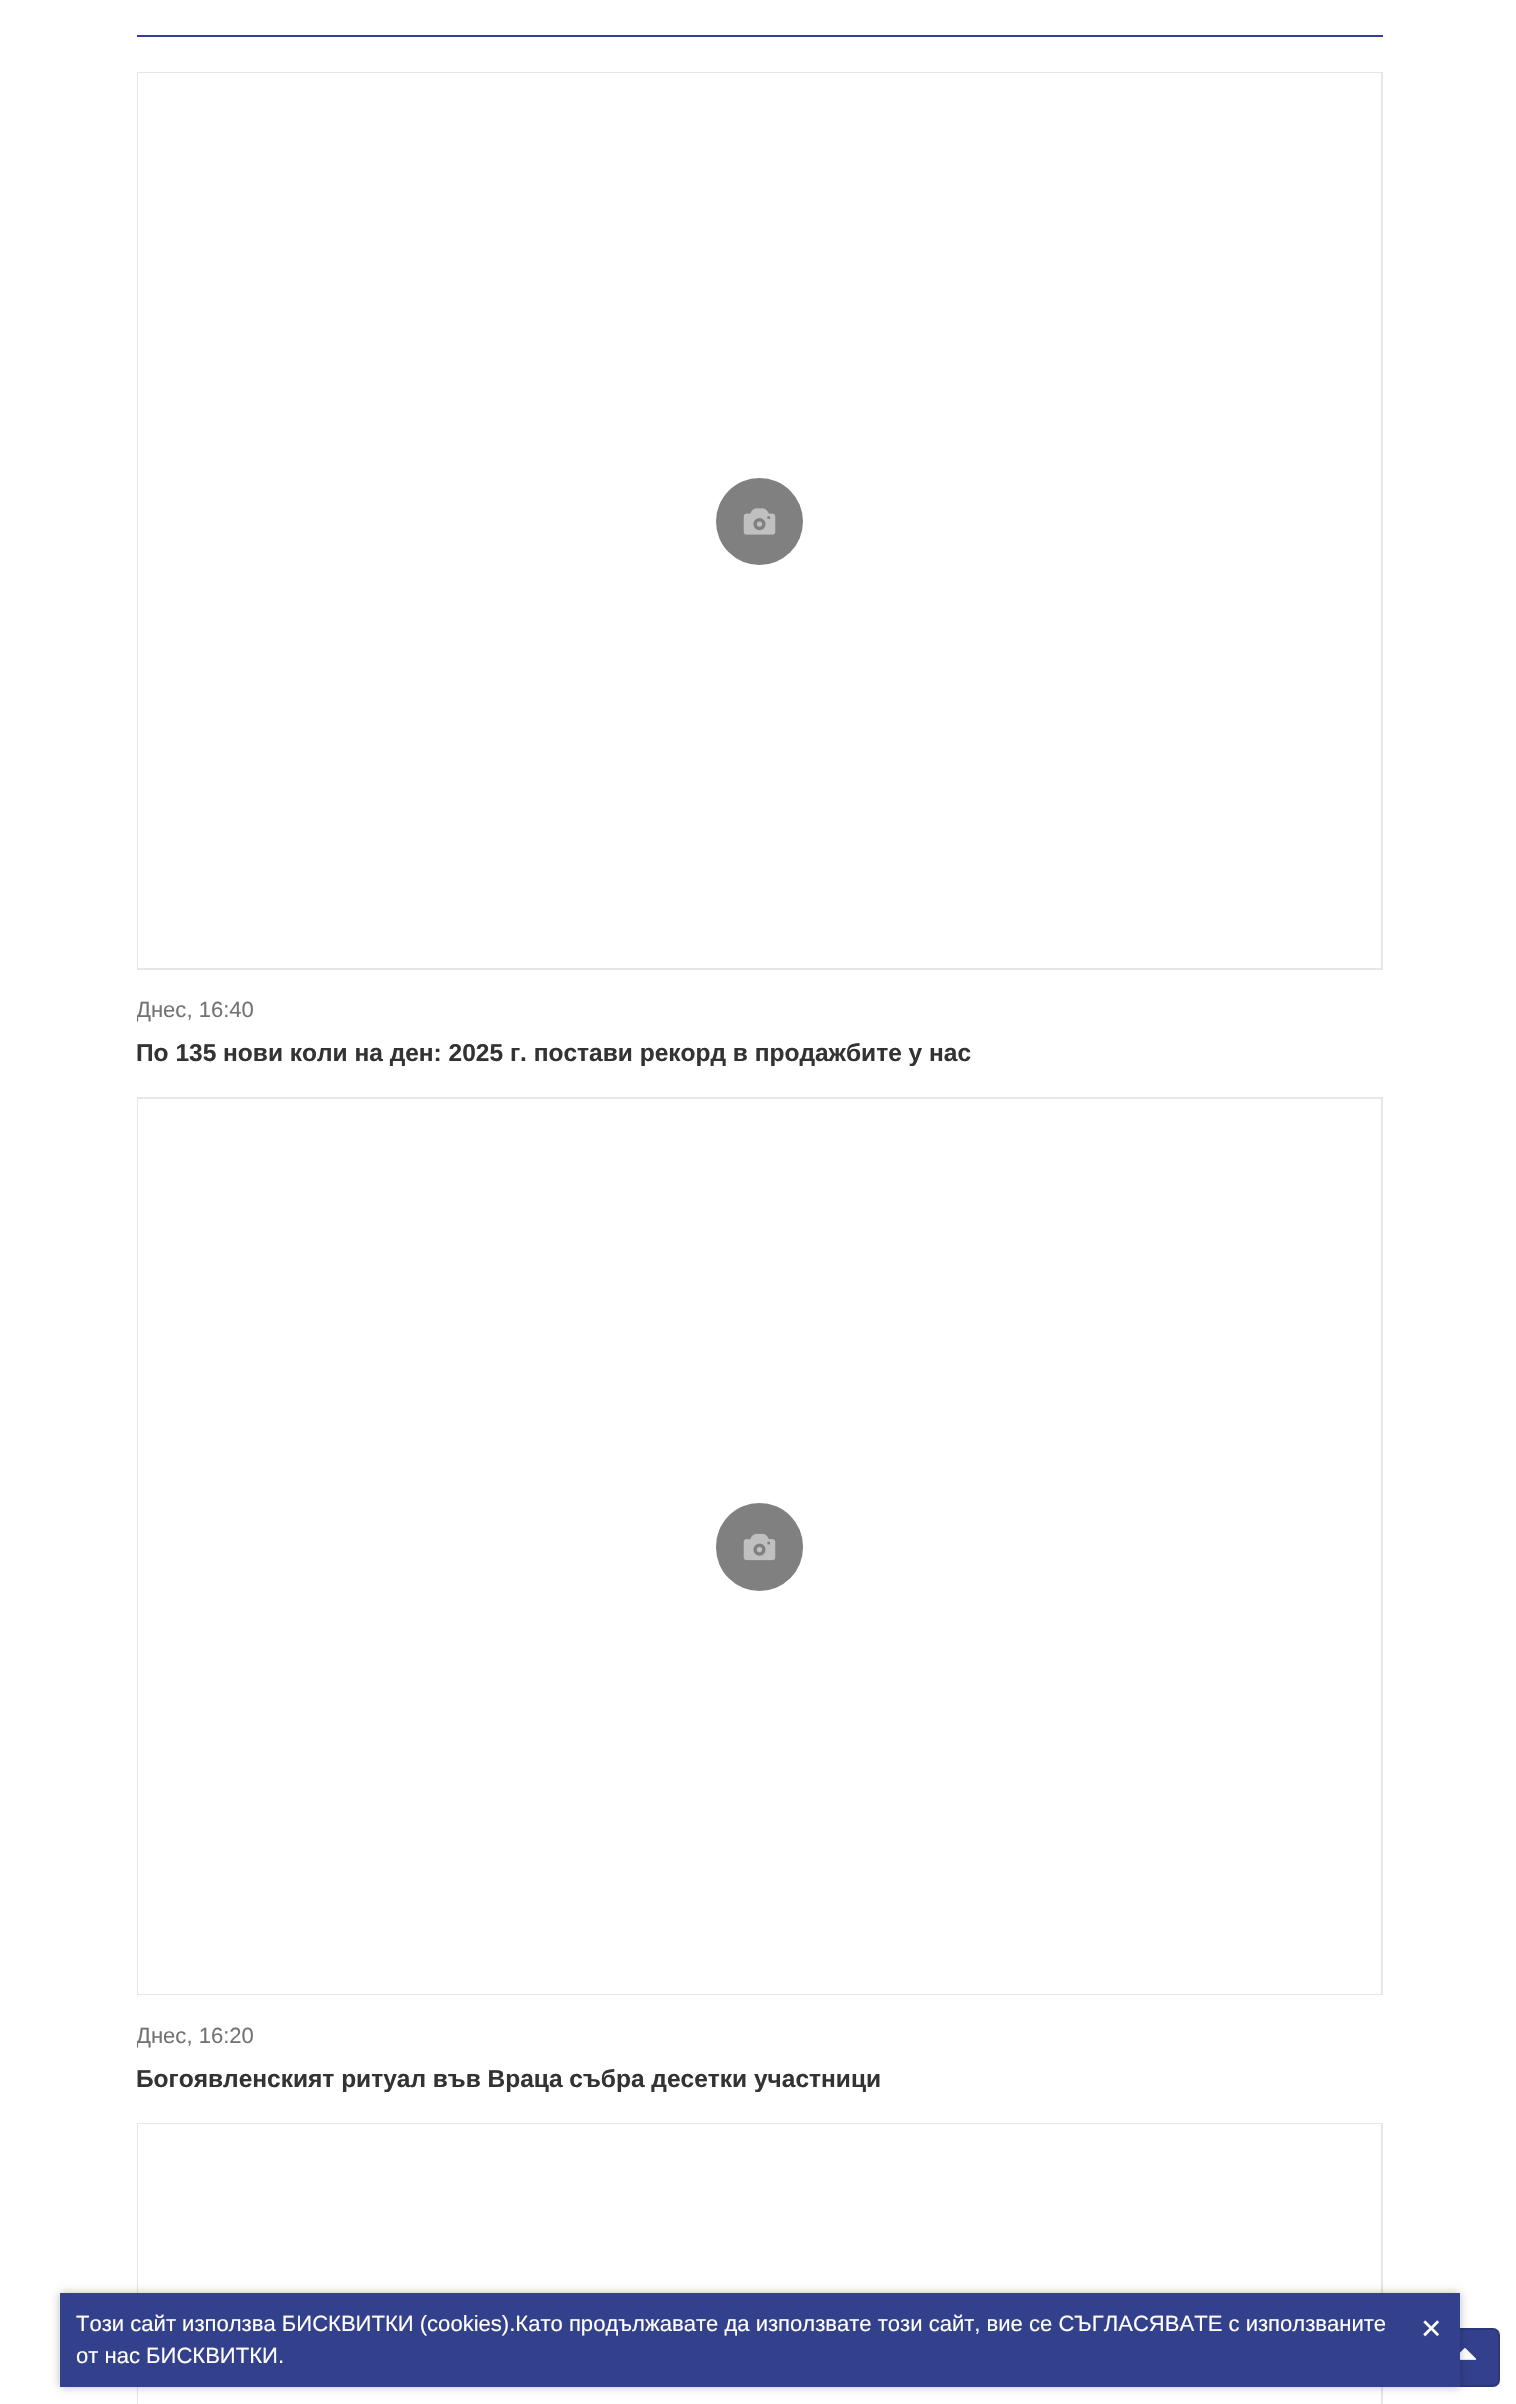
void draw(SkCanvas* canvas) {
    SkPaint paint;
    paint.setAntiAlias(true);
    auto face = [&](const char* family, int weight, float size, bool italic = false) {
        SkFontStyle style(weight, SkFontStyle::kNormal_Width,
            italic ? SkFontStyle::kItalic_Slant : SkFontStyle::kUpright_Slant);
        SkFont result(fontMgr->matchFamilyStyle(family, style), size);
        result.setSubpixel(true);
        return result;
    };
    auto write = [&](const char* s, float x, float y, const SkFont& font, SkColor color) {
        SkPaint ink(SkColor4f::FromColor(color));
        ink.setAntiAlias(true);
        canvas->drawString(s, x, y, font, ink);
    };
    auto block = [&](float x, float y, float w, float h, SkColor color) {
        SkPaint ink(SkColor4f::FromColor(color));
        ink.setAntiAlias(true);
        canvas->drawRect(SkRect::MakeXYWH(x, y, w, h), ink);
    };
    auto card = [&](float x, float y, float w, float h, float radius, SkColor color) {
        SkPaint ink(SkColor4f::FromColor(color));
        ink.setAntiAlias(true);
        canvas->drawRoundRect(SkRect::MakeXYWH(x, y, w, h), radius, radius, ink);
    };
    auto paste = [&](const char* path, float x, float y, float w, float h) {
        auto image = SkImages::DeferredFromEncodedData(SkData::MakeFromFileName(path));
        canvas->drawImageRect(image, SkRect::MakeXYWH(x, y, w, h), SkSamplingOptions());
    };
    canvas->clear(SK_ColorWHITE);
    block(137, 35, 1246, 2, SkColorSetRGB(51, 64, 140));
    paint.setStyle(SkPaint::kStroke_Style);
    paint.setStrokeWidth(2);
    paint.setColor(SkColorSetRGB(230, 230, 230));
    canvas->drawRect(SkRect::MakeXYWH(138, 73, 1244, 896), paint);
    block(138, 73, 1243, 895, SK_ColorWHITE);
    paint.setStyle(SkPaint::kFill_Style);
    paint.setColor(SkColorSetRGB(128, 128, 128));
    canvas->drawCircle(759.5f, 521.5f, 43.5f, paint);
    paste("pic1.png", 743, 508, 33, 27);
    canvas->save();
    canvas->clipRect(SkRect::MakeXYWH(137, 0, 1246, 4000));
    auto kFont1 = face("Liberation Sans", 400, 22.05f);
    write("Днес, 16:40", 136, 1017, kFont1, SkColorSetRGB(115, 115, 115));
    canvas->restore();
    auto kFont2 = face("Liberation Sans", 700, 24.5f);
    write("По 135 нови коли на ден: 2025 г. постави рекорд в продажбите у нас", 136, 1061, kFont2, SkColorSetRGB(51, 51, 51));
    paint.setStyle(SkPaint::kStroke_Style);
    paint.setColor(SkColorSetRGB(230, 230, 230));
    canvas->drawRect(SkRect::MakeXYWH(138, 1098, 1244, 896), paint);
    block(138, 1099, 1243, 895, SK_ColorWHITE);
    card(716, 1503, 87, 88, 43.5f, SkColorSetRGB(128, 128, 128));
    paste("pic2.png", 743, 1533, 33, 28);
    canvas->save();
    canvas->clipRect(SkRect::MakeXYWH(137, 0, 1246, 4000));
    write("Днес, 16:20", 136, 2043, kFont1, SkColorSetRGB(115, 115, 115));
    canvas->restore();
    write("Богоявленският ритуал във Враца събра десетки участници", 136, 2087, kFont2, SkColorSetRGB(51, 51, 51));
    canvas->drawRect(SkRect::MakeXYWH(138, 2124, 1244, 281), paint);
    block(138, 2124, 1243, 280, SK_ColorWHITE);
    paint.setStyle(SkPaint::kFill_Style);
    paint.setColor(SkColorSetRGB(51, 64, 140));
    canvas->drawRoundRect(SkRect::MakeXYWH(1431, 2329, 68, 57), 6, 6, paint);
    paint.setStyle(SkPaint::kStroke_Style);
    paint.setColor(SkColorSetRGB(44, 55, 121));
    canvas->drawRoundRect(SkRect::MakeXYWH(1431, 2329, 68, 57), 6, 6, paint);
    paste("pic3.png", 1460, 2348, 17, 12);
    paint.setStyle(SkPaint::kFill_Style);
    paint.setColor(SkColorSetARGB(64, 0, 0, 0));
    paint.setMaskFilter(SkMaskFilter::MakeBlur(kNormal_SkBlurStyle, 4.5f));
    canvas->drawRect(SkRect::MakeXYWH(60, 2293, 1400, 94), paint);
    paint.setMaskFilter(nullptr);
    block(60, 2293, 1400, 94, SkColorSetRGB(51, 64, 140));
    write("Този сайт използва БИСКВИТКИ (cookies).Като продължавате да използвате този сайт, вие се СЪГЛАСЯВАТЕ с използваните", 76, 2331, kFont1, SK_ColorWHITE);
    auto kFont3 = face("Liberation Sans", 400, 35);
    write("×", 1421, 2340, kFont3, SK_ColorWHITE);
    write("от нас БИСКВИТКИ.", 76, 2363, kFont1, SK_ColorWHITE);
}
